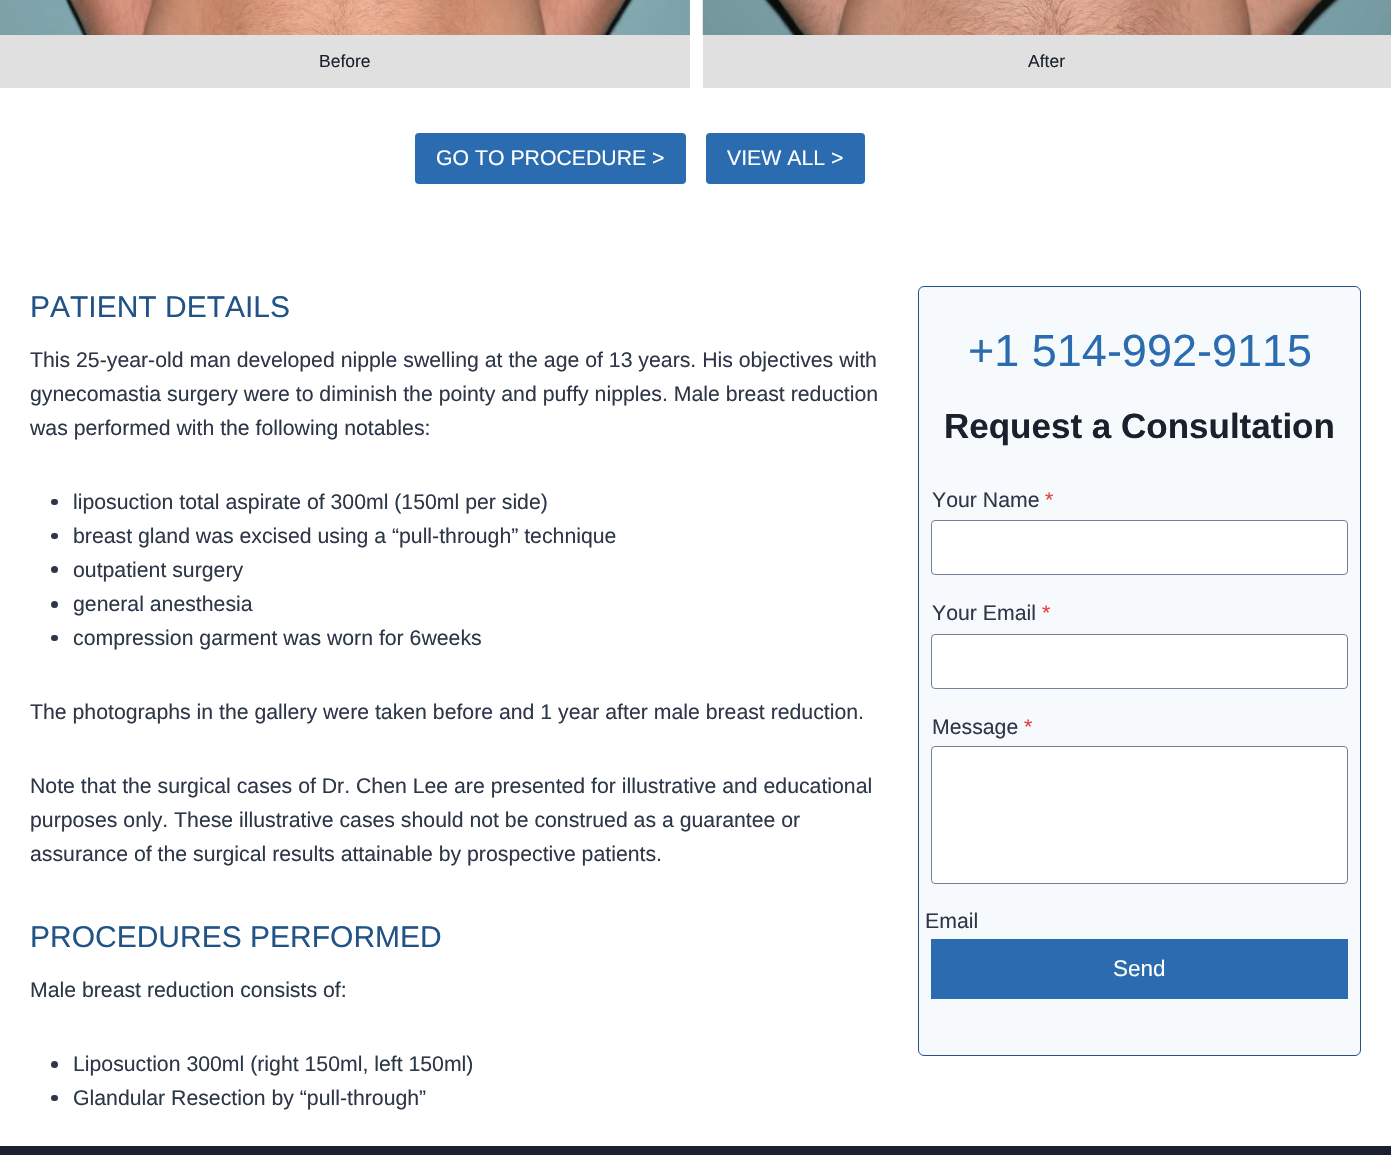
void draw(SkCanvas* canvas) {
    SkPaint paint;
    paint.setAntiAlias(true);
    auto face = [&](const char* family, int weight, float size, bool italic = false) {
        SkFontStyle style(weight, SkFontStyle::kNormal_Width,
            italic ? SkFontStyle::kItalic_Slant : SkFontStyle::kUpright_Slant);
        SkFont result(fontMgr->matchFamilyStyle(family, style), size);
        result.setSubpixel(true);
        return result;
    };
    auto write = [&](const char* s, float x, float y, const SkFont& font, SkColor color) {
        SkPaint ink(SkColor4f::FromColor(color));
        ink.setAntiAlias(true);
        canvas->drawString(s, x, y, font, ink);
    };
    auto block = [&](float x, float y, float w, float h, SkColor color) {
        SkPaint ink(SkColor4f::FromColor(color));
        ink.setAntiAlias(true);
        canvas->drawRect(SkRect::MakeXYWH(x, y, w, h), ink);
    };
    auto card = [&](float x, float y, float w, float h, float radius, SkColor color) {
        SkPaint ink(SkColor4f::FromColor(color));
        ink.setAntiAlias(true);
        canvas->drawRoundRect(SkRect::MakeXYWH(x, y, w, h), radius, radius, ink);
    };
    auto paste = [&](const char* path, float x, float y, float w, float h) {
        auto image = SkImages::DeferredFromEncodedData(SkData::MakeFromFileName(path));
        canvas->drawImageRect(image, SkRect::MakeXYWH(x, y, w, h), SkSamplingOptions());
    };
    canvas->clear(SK_ColorWHITE);
    paste("pic1.png", 0, 0, 690, 35);
    block(0, 35, 690, 53, SkColorSetRGB(224, 224, 224));
    auto kFont1 = face("Liberation Sans", 400, 17.5f);
    write("Before", 319, 67, kFont1, SkColorSetRGB(26, 32, 44));
    paste("pic2.png", 702, 0, 689, 35);
    block(703, 35, 688, 53, SkColorSetRGB(224, 224, 224));
    write("After", 1028, 67, kFont1, SkColorSetRGB(26, 32, 44));
    card(415, 133, 271, 51, 4, SkColorSetRGB(43, 108, 176));
    auto kFont2 = face("Liberation Sans", 400, 21.25f);
    write("GO TO PROCEDURE >", 436, 165, kFont2, SK_ColorWHITE);
    card(706, 133, 159, 51, 4, SkColorSetRGB(43, 108, 176));
    write("VIEW ALL >", 727, 165, kFont2, SK_ColorWHITE);
    auto kFont3 = face("Liberation Sans", 400, 30);
    write("PATIENT DETAILS", 30, 317, kFont3, SkColorSetRGB(33, 83, 135));
    write("This 25-year-old man developed nipple swelling at the age of 13 years. His objectives with", 30, 367, kFont2, SkColorSetRGB(45, 55, 72));
    write("gynecomastia surgery were to diminish the pointy and puffy nipples. Male breast reduction", 30, 401, kFont2, SkColorSetRGB(45, 55, 72));
    write("was performed with the following notables:", 30, 435, kFont2, SkColorSetRGB(45, 55, 72));
    card(51, 499, 7, 6, 3, SkColorSetRGB(45, 55, 72));
    write("liposuction total aspirate of 300ml (150ml per side)", 73, 509, kFont2, SkColorSetRGB(45, 55, 72));
    card(51, 533, 7, 6, 3, SkColorSetRGB(45, 55, 72));
    write("breast gland was excised using a “pull-through” technique", 73, 543, kFont2, SkColorSetRGB(45, 55, 72));
    paint.setColor(SkColorSetRGB(45, 55, 72));
    canvas->drawCircle(54.5f, 569.5f, 3.5f, paint);
    write("outpatient surgery", 73, 577, kFont2, SkColorSetRGB(45, 55, 72));
    canvas->drawCircle(54.5f, 604.5f, 3.5f, paint);
    write("general anesthesia", 73, 611, kFont2, SkColorSetRGB(45, 55, 72));
    card(51, 635, 7, 6, 3, SkColorSetRGB(45, 55, 72));
    write("compression garment was worn for 6weeks", 73, 645, kFont2, SkColorSetRGB(45, 55, 72));
    write("The photographs in the gallery were taken before and 1 year after male breast reduction.", 30, 719, kFont2, SkColorSetRGB(45, 55, 72));
    write("Note that the surgical cases of Dr. Chen Lee are presented for illustrative and educational", 30, 793, kFont2, SkColorSetRGB(45, 55, 72));
    write("purposes only. These illustrative cases should not be construed as a guarantee or", 30, 827, kFont2, SkColorSetRGB(45, 55, 72));
    write("assurance of the surgical results attainable by prospective patients.", 30, 861, kFont2, SkColorSetRGB(45, 55, 72));
    write("PROCEDURES PERFORMED", 30, 947, kFont3, SkColorSetRGB(33, 83, 135));
    write("Male breast reduction consists of:", 30, 997, kFont2, SkColorSetRGB(45, 55, 72));
    canvas->drawCircle(54.5f, 1064.5f, 3.5f, paint);
    write("Liposuction 300ml (right 150ml, left 150ml)", 73, 1071, kFont2, SkColorSetRGB(45, 55, 72));
    card(51, 1095, 7, 6, 3, SkColorSetRGB(45, 55, 72));
    write("Glandular Resection by “pull-through”", 73, 1105, kFont2, SkColorSetRGB(45, 55, 72));
    paint.setColor(SkColorSetRGB(247, 250, 252));
    canvas->drawRoundRect(SkRect::MakeXYWH(918.5f, 286.5f, 442, 769), 5.5f, 5.5f, paint);
    paint.setStyle(SkPaint::kStroke_Style);
    paint.setStrokeWidth(1);
    paint.setColor(SkColorSetRGB(33, 83, 135));
    canvas->drawRoundRect(SkRect::MakeXYWH(918.5f, 286.5f, 442, 769), 5.5f, 5.5f, paint);
    auto kFont4 = face("Liberation Sans", 400, 45);
    write("+1 514-992-9115", 968, 366, kFont4, SkColorSetRGB(43, 108, 176));
    auto kFont5 = face("Liberation Sans", 700, 35);
    write("Request a Consultation", 944, 438, kFont5, SkColorSetRGB(26, 32, 44));
    write("Your Name", 932, 507, kFont2, SkColorSetRGB(45, 55, 72));
    write("*", 1045, 507, kFont2, SkColorSetRGB(229, 62, 62));
    paint.setStyle(SkPaint::kFill_Style);
    paint.setColor(SK_ColorWHITE);
    canvas->drawRoundRect(SkRect::MakeXYWH(931.5f, 520.5f, 416, 54), 3.5f, 3.5f, paint);
    paint.setStyle(SkPaint::kStroke_Style);
    paint.setColor(SkColorSetRGB(113, 128, 150));
    canvas->drawRoundRect(SkRect::MakeXYWH(931.5f, 520.5f, 416, 54), 3.5f, 3.5f, paint);
    write("Your Email", 932, 620, kFont2, SkColorSetRGB(45, 55, 72));
    write("*", 1042, 620, kFont2, SkColorSetRGB(229, 62, 62));
    paint.setStyle(SkPaint::kFill_Style);
    paint.setColor(SK_ColorWHITE);
    canvas->drawRoundRect(SkRect::MakeXYWH(931.5f, 634.5f, 416, 54), 3.5f, 3.5f, paint);
    paint.setStyle(SkPaint::kStroke_Style);
    paint.setColor(SkColorSetRGB(113, 128, 150));
    canvas->drawRoundRect(SkRect::MakeXYWH(931.5f, 634.5f, 416, 54), 3.5f, 3.5f, paint);
    write("Message", 932, 734, kFont2, SkColorSetRGB(45, 55, 72));
    write("*", 1024, 734, kFont2, SkColorSetRGB(229, 62, 62));
    paint.setStyle(SkPaint::kFill_Style);
    paint.setColor(SK_ColorWHITE);
    canvas->drawRoundRect(SkRect::MakeXYWH(931.5f, 746.5f, 416, 137), 3.5f, 3.5f, paint);
    paint.setStyle(SkPaint::kStroke_Style);
    paint.setColor(SkColorSetRGB(113, 128, 150));
    canvas->drawRoundRect(SkRect::MakeXYWH(931.5f, 746.5f, 416, 137), 3.5f, 3.5f, paint);
    write("Email", 925, 928, kFont2, SkColorSetRGB(45, 55, 72));
    block(931, 939, 417, 60, SkColorSetRGB(43, 108, 176));
    auto kFont6 = face("Liberation Sans", 400, 22.5f);
    write("Send", 1113, 976, kFont6, SK_ColorWHITE);
    block(0, 1146, 1391, 9, SkColorSetRGB(26, 32, 44));
}
